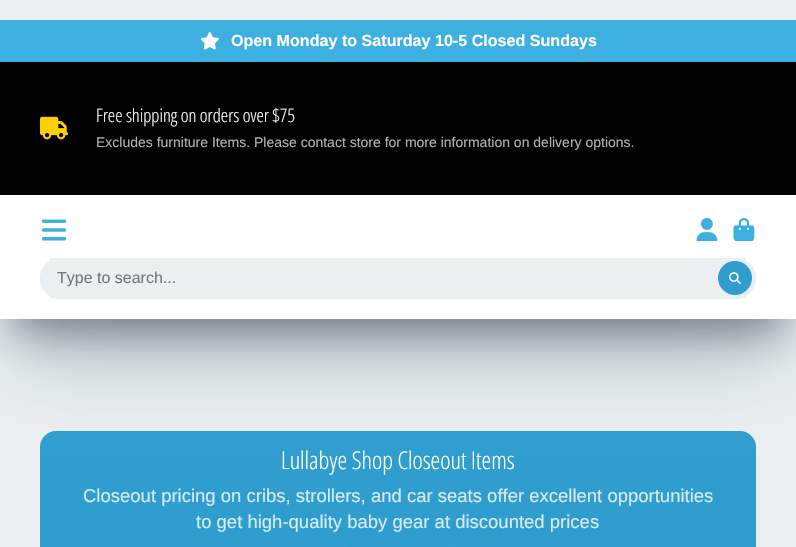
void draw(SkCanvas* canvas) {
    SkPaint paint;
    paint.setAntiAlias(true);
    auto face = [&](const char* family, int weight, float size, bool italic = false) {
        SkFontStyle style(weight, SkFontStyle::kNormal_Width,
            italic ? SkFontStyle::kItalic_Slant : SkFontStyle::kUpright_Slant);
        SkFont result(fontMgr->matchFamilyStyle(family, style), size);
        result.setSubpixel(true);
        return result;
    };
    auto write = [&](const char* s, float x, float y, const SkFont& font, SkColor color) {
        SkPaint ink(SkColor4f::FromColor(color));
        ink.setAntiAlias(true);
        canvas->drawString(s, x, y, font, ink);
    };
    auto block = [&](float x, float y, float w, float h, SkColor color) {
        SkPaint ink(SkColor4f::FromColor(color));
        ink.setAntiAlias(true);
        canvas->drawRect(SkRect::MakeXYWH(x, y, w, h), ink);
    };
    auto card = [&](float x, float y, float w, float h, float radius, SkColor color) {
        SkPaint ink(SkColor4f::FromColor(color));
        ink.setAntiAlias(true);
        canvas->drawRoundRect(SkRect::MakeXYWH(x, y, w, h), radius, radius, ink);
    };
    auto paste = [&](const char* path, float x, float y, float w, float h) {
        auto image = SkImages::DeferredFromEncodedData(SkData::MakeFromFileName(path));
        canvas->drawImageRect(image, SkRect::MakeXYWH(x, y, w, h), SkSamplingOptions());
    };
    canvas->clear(SkColorSetRGB(235, 239, 241));
    block(0, 20, 796, 42, SkColorSetRGB(62, 175, 225));
    paste("pic1.png", 200, 32, 19, 18);
    auto kFont1 = face("Liberation Sans", 700, 16.1f);
    write("Open Monday to Saturday 10-5 Closed Sundays", 231, 46, kFont1, SK_ColorWHITE);
    block(0, 62, 796, 133, SK_ColorBLACK);
    paste("pic2.png", 40, 116, 28, 24);
    auto kFont2 = face("Open Sans Condensed", 300, 18.5f);
    write("Free shipping on orders over $75", 96, 122, kFont2, SK_ColorWHITE);
    auto kFont3 = face("Liberation Sans", 400, 14);
    write("Excludes furniture Items. Please contact store for more information on delivery options.", 96, 147, kFont3, SkColorSetRGB(179, 179, 179));
    paint.setColor(SkColorSetARGB(102, 15, 30, 45));
    paint.setMaskFilter(SkMaskFilter::MakeBlur(kNormal_SkBlurStyle, 19));
    canvas->drawRect(SkRect::MakeXYWH(14, 235, 768, 96), paint);
    paint.setMaskFilter(nullptr);
    card(40, 431, 716, 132, 16, SkColorSetRGB(47, 158, 207));
    paint.setColor(SkColorSetARGB(77, 15, 30, 45));
    paint.setMaskFilter(SkMaskFilter::MakeBlur(kNormal_SkBlurStyle, 44));
    canvas->drawRect(SkRect::MakeXYWH(14, 253, 768, 96), paint);
    paint.setMaskFilter(nullptr);
    block(0, 195, 796, 124, SK_ColorWHITE);
    paste("pic3.png", 41, 219, 26, 22);
    paste("pic4.png", 696, 218, 22, 23);
    paste("pic5.png", 733, 218, 22, 23);
    card(40, 258, 716, 40, 20, SkColorSetRGB(235, 239, 241));
    block(50, 258, 696, 40, SkColorSetRGB(235, 239, 241));
    card(40, 258, 716, 41, 20.5f, SkColorSetRGB(235, 239, 241));
    auto kFont4 = face("Liberation Sans", 400, 16);
    write("Type to search...", 57, 283, kFont4, SkColorSetRGB(117, 117, 117));
    paint.setColor(SkColorSetRGB(47, 158, 207));
    canvas->drawCircle(735, 278, 17, paint);
    paste("pic6.png", 729, 272, 12, 12);
    auto kFont5 = face("Open Sans Condensed", 300, 24.5f);
    write("Lullabye Shop Closeout Items", 281, 469, kFont5, SK_ColorWHITE);
    auto kFont6 = face("Liberation Sans", 400, 18.5f);
    write("Closeout pricing on cribs, strollers, and car seats offer excellent opportunities", 83, 502, kFont6, SkColorSetRGB(213, 236, 245));
    write("to get high-quality baby gear at discounted prices", 196, 528, kFont6, SkColorSetRGB(213, 236, 245));
    paint.setColor(SkColorSetARGB(77, 19, 63, 82));
    paint.setMaskFilter(SkMaskFilter::MakeBlur(kNormal_SkBlurStyle, 2.5f));
    canvas->drawRoundRect(SkRect::MakeXYWH(343, 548, 110, 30), 23, 23, paint);
    paint.setMaskFilter(nullptr);
    card(343, 546, 110, 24, 23, SkColorSetRGB(47, 158, 207));
}
